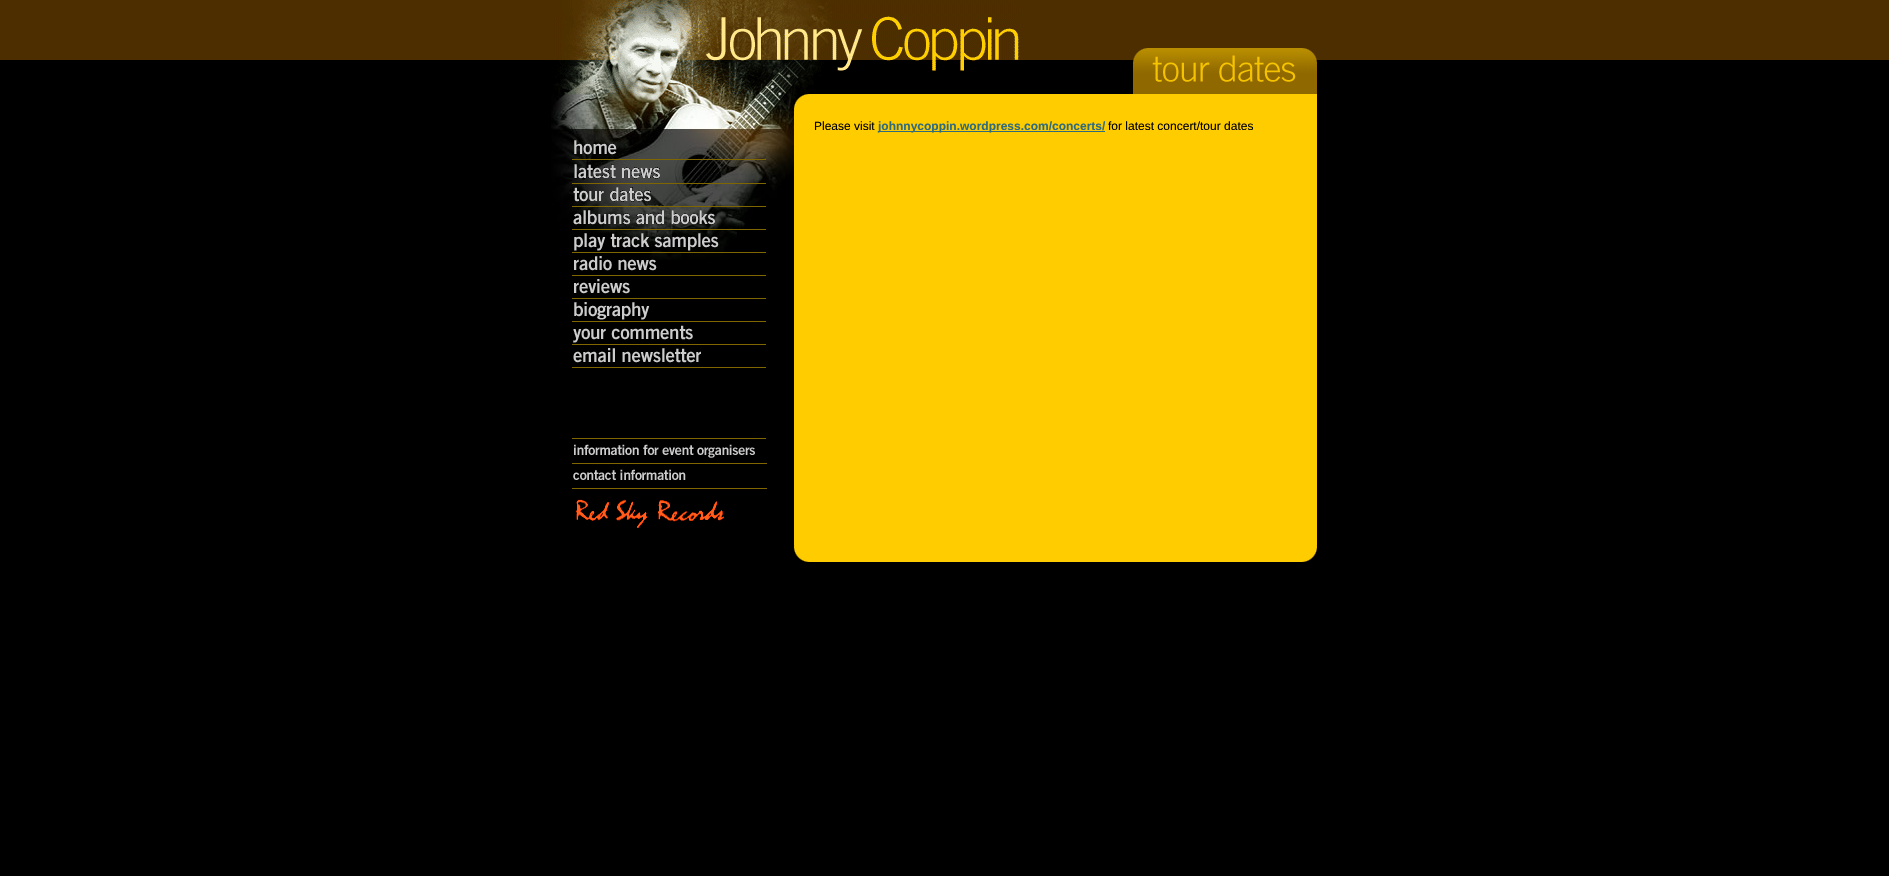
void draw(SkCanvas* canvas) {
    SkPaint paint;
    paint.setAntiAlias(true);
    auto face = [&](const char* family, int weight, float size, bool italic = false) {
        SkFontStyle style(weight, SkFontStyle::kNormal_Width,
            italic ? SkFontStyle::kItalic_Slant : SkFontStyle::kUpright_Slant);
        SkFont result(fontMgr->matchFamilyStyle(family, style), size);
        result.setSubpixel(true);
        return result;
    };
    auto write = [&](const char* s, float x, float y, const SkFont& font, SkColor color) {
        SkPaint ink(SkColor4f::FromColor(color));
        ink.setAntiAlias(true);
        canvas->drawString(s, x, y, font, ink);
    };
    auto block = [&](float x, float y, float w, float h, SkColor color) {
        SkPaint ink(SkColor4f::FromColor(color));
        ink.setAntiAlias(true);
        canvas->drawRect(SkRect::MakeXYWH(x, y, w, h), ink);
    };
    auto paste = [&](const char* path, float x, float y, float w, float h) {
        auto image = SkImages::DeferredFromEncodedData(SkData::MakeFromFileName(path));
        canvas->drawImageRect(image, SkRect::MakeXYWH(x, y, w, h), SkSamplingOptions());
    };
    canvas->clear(SK_ColorBLACK);
    block(0, 0, 1889, 60, SkColorSetRGB(77, 46, 0));
    paste("pic1.png", 554, 0, 466, 94);
    paste("pic2.png", 1133, 48, 184, 46);
    paste("pic3.png", 551, 94, 243, 166);
    paste("pic4.png", 574, 140, 43, 15);
    block(572, 159, 194, 1, SkColorSetRGB(128, 102, 0));
    paste("pic5.png", 574, 164, 86, 15);
    block(572, 183, 194, 1, SkColorSetRGB(128, 102, 0));
    paste("pic6.png", 573, 187, 78, 15);
    block(572, 206, 194, 1, SkColorSetRGB(128, 102, 0));
    paste("pic7.png", 573, 210, 142, 15);
    block(572, 229, 194, 1, SkColorSetRGB(128, 102, 0));
    paste("pic8.png", 574, 233, 145, 18);
    block(572, 252, 194, 1, SkColorSetRGB(128, 102, 0));
    paste("pic9.png", 574, 256, 83, 15);
    block(572, 275, 194, 1, SkColorSetRGB(128, 102, 0));
    paste("pic10.png", 574, 279, 56, 15);
    block(572, 298, 194, 1, SkColorSetRGB(128, 102, 0));
    paste("pic11.png", 574, 302, 76, 18);
    block(572, 321, 194, 1, SkColorSetRGB(128, 102, 0));
    paste("pic12.png", 573, 325, 120, 18);
    block(572, 344, 194, 1, SkColorSetRGB(128, 102, 0));
    paste("pic13.png", 573, 348, 128, 15);
    block(572, 367, 194, 1, SkColorSetRGB(128, 102, 0));
    paste("pic14.png", 572, 438, 194, 20);
    block(572, 463, 195, 1, SkColorSetRGB(128, 102, 0));
    paste("pic15.png", 573, 469, 113, 11);
    block(572, 488, 195, 1, SkColorSetRGB(128, 102, 0));
    paste("pic16.png", 576, 499, 148, 29);
    block(794, 94, 523, 447, SkColorSetRGB(255, 204, 0));
    paste("pic17.png", 794, 94, 15, 17);
    auto kFont1 = face("Liberation Sans", 400, 12);
    write("Please visit", 814, 130, kFont1, SK_ColorBLACK);
    block(878, 131, 227, 1, SkColorSetRGB(47, 107, 125));
    auto kFont2 = face("Liberation Sans", 700, 12);
    write("johnnycoppin.wordpress.com/concerts/", 878, 130, kFont2, SkColorSetRGB(47, 107, 125));
    write("for latest concert/tour dates", 1108, 130, kFont1, SK_ColorBLACK);
    paste("pic18.png", 794, 541, 523, 21);
}
